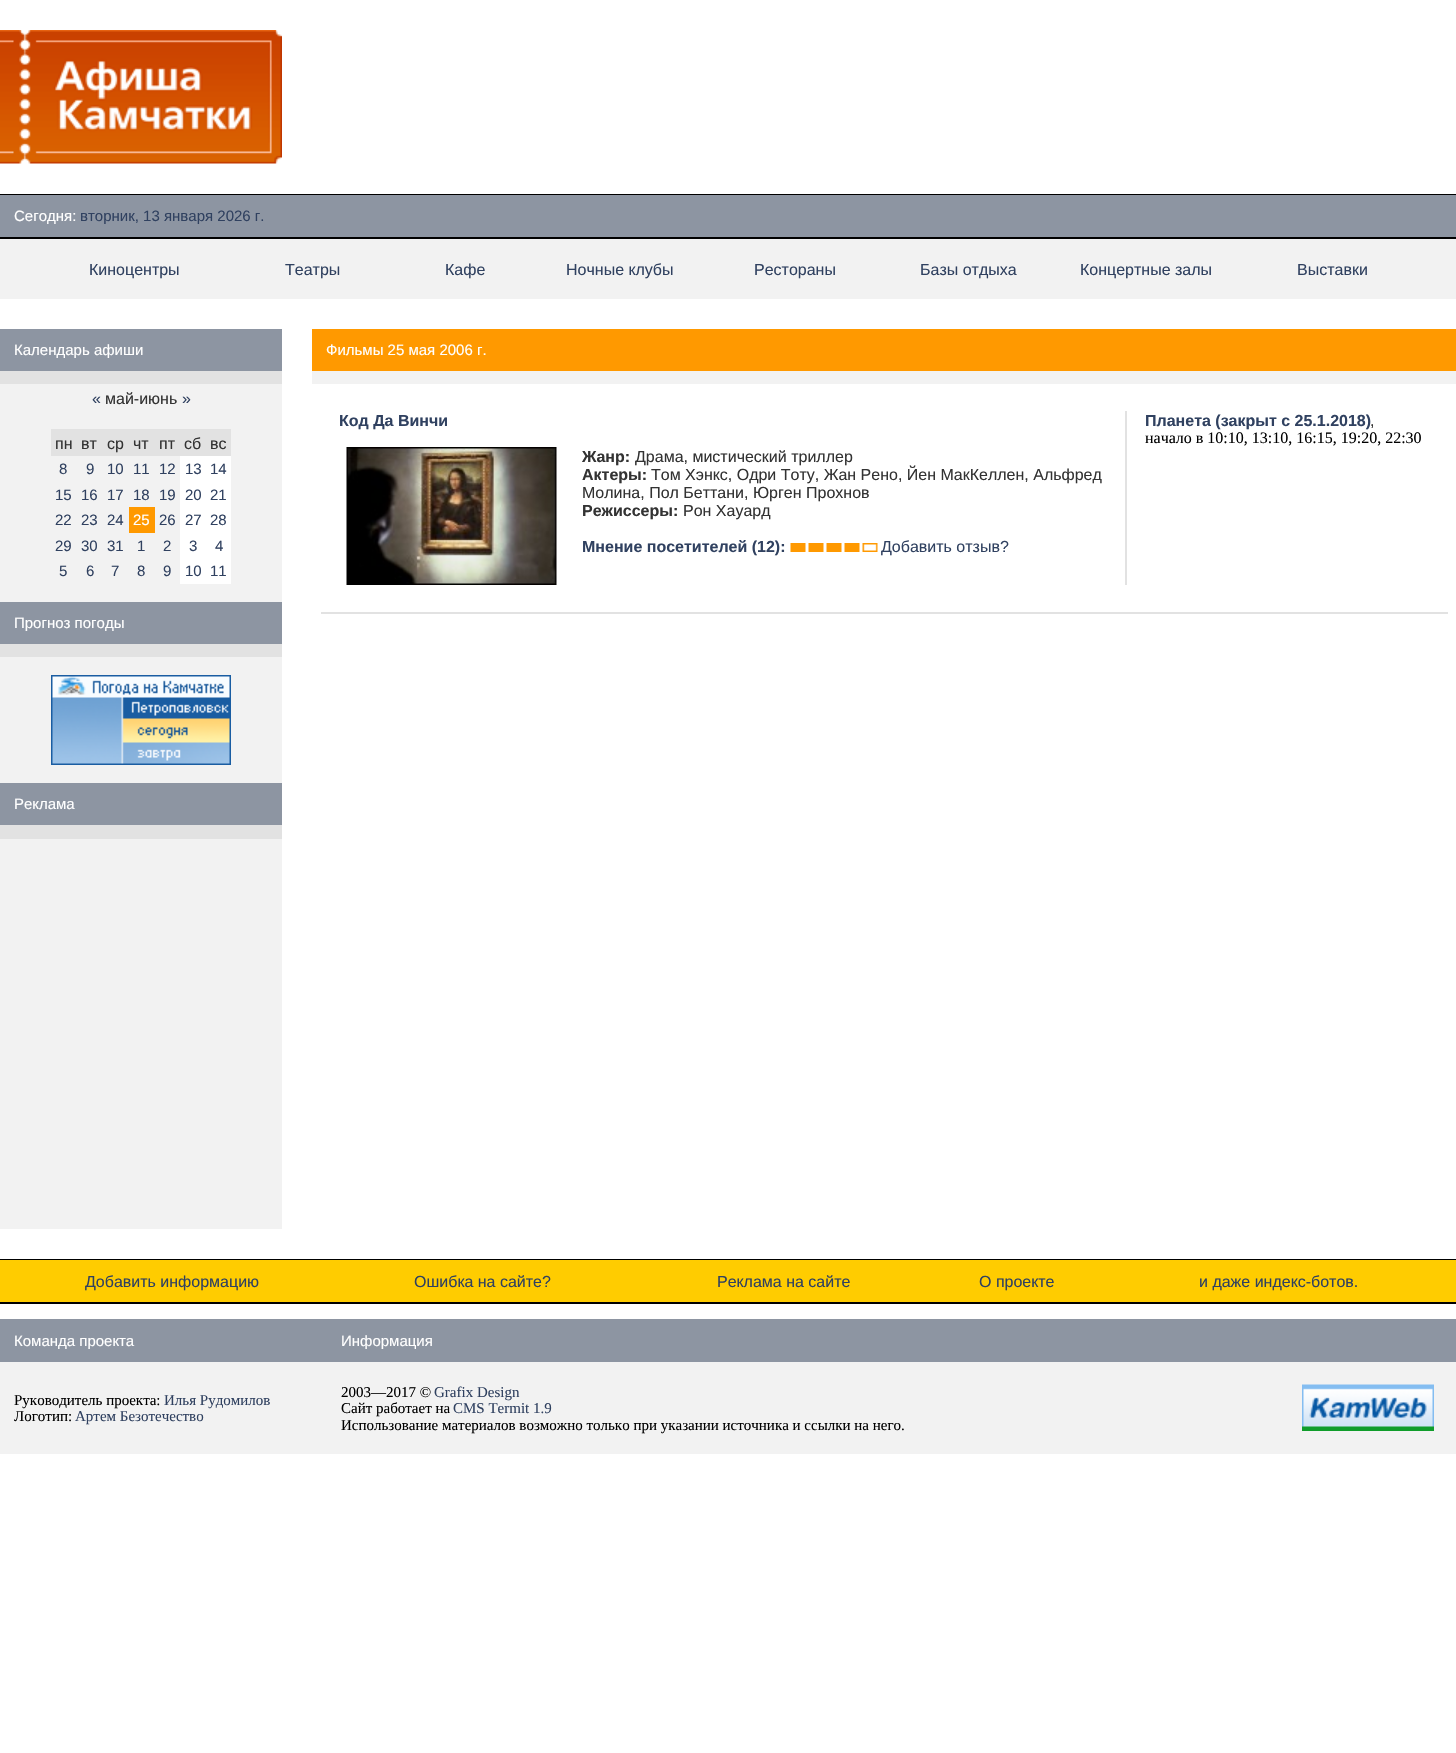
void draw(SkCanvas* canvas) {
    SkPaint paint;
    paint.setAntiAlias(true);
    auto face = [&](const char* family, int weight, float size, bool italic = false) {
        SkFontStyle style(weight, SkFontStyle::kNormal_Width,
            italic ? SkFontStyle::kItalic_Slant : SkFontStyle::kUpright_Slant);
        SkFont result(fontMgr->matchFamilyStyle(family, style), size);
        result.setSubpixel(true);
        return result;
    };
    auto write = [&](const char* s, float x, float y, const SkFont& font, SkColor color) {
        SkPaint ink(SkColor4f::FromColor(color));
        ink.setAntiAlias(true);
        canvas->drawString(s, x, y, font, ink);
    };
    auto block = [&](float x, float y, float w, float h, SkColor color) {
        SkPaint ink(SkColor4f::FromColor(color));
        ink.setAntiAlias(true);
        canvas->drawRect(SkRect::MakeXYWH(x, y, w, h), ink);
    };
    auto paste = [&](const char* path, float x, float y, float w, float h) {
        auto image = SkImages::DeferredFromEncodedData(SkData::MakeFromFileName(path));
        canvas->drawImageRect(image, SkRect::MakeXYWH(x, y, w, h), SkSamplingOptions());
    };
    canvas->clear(SK_ColorWHITE);
    paste("pic1.png", 0, 30, 282, 134);
    block(0, 194, 1456, 1, SK_ColorBLACK);
    block(0, 195, 1456, 42, SkColorSetRGB(141, 149, 162));
    auto kFont1 = face("Liberation Sans", 400, 15);
    write("Сегодня:", 14, 221, kFont1, SK_ColorWHITE);
    write("вторник, 13 января 2026 г.", 80, 221, kFont1, SkColorSetRGB(48, 65, 96));
    block(0, 237, 1456, 2, SK_ColorBLACK);
    block(0, 239, 1456, 60, SkColorSetRGB(242, 242, 242));
    auto kFont2 = face("Liberation Sans", 400, 16);
    write("Киноцентры", 89, 275, kFont2, SkColorSetRGB(48, 65, 96));
    write("Театры", 285, 275, kFont2, SkColorSetRGB(48, 65, 96));
    write("Кафе", 445, 275, kFont2, SkColorSetRGB(48, 65, 96));
    write("Ночные клубы", 566, 275, kFont2, SkColorSetRGB(48, 65, 96));
    write("Рестораны", 754, 275, kFont2, SkColorSetRGB(48, 65, 96));
    write("Базы отдыха", 920, 275, kFont2, SkColorSetRGB(48, 65, 96));
    write("Концертные залы", 1080, 275, kFont2, SkColorSetRGB(48, 65, 96));
    write("Выставки", 1297, 275, kFont2, SkColorSetRGB(48, 65, 96));
    block(0, 384, 282, 845, SkColorSetRGB(242, 242, 242));
    block(0, 329, 282, 42, SkColorSetRGB(141, 149, 162));
    write("Календарь афиши", 14, 355, kFont1, SK_ColorWHITE);
    block(0, 371, 282, 13, SkColorSetRGB(226, 226, 226));
    write("«", 92, 404, kFont2, SkColorSetRGB(48, 65, 96));
    write("май-июнь", 105, 404, kFont2, SkColorSetRGB(51, 51, 51));
    write("»", 182, 404, kFont2, SkColorSetRGB(48, 65, 96));
    block(51, 429, 180, 27, SkColorSetRGB(226, 226, 226));
    write("пн", 55, 449, kFont2, SkColorSetRGB(51, 51, 51));
    write("вт", 81, 449, kFont2, SkColorSetRGB(51, 51, 51));
    write("ср", 107, 449, kFont2, SkColorSetRGB(51, 51, 51));
    write("чт", 133, 449, kFont2, SkColorSetRGB(51, 51, 51));
    write("пт", 159, 449, kFont2, SkColorSetRGB(51, 51, 51));
    write("сб", 184, 449, kFont2, SkColorSetRGB(51, 51, 51));
    write("вс", 210, 449, kFont2, SkColorSetRGB(51, 51, 51));
    write("8", 59, 474, kFont1, SkColorSetRGB(48, 65, 96));
    write("9", 86, 474, kFont1, SkColorSetRGB(48, 65, 96));
    write("10", 107, 474, kFont1, SkColorSetRGB(48, 65, 96));
    write("11", 133, 474, kFont1, SkColorSetRGB(48, 65, 96));
    write("12", 159, 474, kFont1, SkColorSetRGB(48, 65, 96));
    block(180, 456, 51, 26, SK_ColorWHITE);
    write("13", 185, 474, kFont1, SkColorSetRGB(48, 65, 96));
    write("14", 210, 474, kFont1, SkColorSetRGB(48, 65, 96));
    write("15", 55, 500, kFont1, SkColorSetRGB(48, 65, 96));
    write("16", 81, 500, kFont1, SkColorSetRGB(48, 65, 96));
    write("17", 107, 500, kFont1, SkColorSetRGB(48, 65, 96));
    write("18", 133, 500, kFont1, SkColorSetRGB(48, 65, 96));
    write("19", 159, 500, kFont1, SkColorSetRGB(48, 65, 96));
    block(180, 482, 51, 25, SK_ColorWHITE);
    write("20", 185, 500, kFont1, SkColorSetRGB(48, 65, 96));
    write("21", 210, 500, kFont1, SkColorSetRGB(48, 65, 96));
    write("22", 55, 525, kFont1, SkColorSetRGB(48, 65, 96));
    write("23", 81, 525, kFont1, SkColorSetRGB(48, 65, 96));
    write("24", 107, 525, kFont1, SkColorSetRGB(48, 65, 96));
    block(129, 507, 26, 26, SkColorSetRGB(255, 153, 0));
    write("25", 133, 525, kFont1, SK_ColorWHITE);
    write("26", 159, 525, kFont1, SkColorSetRGB(48, 65, 96));
    block(180, 507, 51, 26, SK_ColorWHITE);
    write("27", 185, 525, kFont1, SkColorSetRGB(48, 65, 96));
    write("28", 210, 525, kFont1, SkColorSetRGB(48, 65, 96));
    write("29", 55, 551, kFont1, SkColorSetRGB(48, 65, 96));
    write("30", 81, 551, kFont1, SkColorSetRGB(48, 65, 96));
    write("31", 107, 551, kFont1, SkColorSetRGB(48, 65, 96));
    write("1", 137, 551, kFont1, SkColorSetRGB(48, 65, 96));
    write("2", 163, 551, kFont1, SkColorSetRGB(48, 65, 96));
    block(180, 533, 51, 25, SK_ColorWHITE);
    write("3", 189, 551, kFont1, SkColorSetRGB(48, 65, 96));
    write("4", 215, 551, kFont1, SkColorSetRGB(48, 65, 96));
    write("5", 59, 576, kFont1, SkColorSetRGB(48, 65, 96));
    write("6", 86, 576, kFont1, SkColorSetRGB(48, 65, 96));
    write("7", 111, 576, kFont1, SkColorSetRGB(48, 65, 96));
    write("8", 137, 576, kFont1, SkColorSetRGB(48, 65, 96));
    write("9", 163, 576, kFont1, SkColorSetRGB(48, 65, 96));
    block(180, 558, 51, 26, SK_ColorWHITE);
    write("10", 185, 576, kFont1, SkColorSetRGB(48, 65, 96));
    write("11", 210, 576, kFont1, SkColorSetRGB(48, 65, 96));
    block(0, 602, 282, 42, SkColorSetRGB(141, 149, 162));
    write("Прогноз погоды", 14, 628, kFont1, SK_ColorWHITE);
    block(0, 644, 282, 13, SkColorSetRGB(226, 226, 226));
    paste("pic2.png", 51, 675, 180, 90);
    block(0, 783, 282, 42, SkColorSetRGB(141, 149, 162));
    write("Реклама", 14, 809, kFont1, SK_ColorWHITE);
    block(0, 825, 282, 14, SkColorSetRGB(226, 226, 226));
    block(312, 329, 1144, 42, SkColorSetRGB(255, 153, 0));
    write("Фильмы 25 мая 2006 г.", 326, 355, kFont1, SK_ColorWHITE);
    block(312, 371, 1144, 13, SkColorSetRGB(242, 242, 242));
    auto kFont3 = face("Liberation Sans", 700, 16);
    write("Код Да Винчи", 339, 426, kFont3, SkColorSetRGB(48, 65, 96));
    block(1125, 411, 2, 174, SkColorSetRGB(226, 226, 226));
    write("Планета (закрыт с 25.1.2018)", 1145, 426, kFont3, SkColorSetRGB(48, 65, 96));
    write(",", 1370, 426, kFont2, SkColorSetRGB(51, 51, 51));
    auto kFont4 = face("Liberation Serif", 400, 16);
    write("начало в 10:10, 13:10, 16:15, 19:20, 22:30", 1145, 443, kFont4, SK_ColorBLACK);
    paste("pic3.png", 346, 447, 211, 138);
    write("Жанр:", 582, 462, kFont3, SkColorSetRGB(51, 51, 51));
    write("Драма, мистический триллер", 635, 462, kFont2, SkColorSetRGB(51, 51, 51));
    write("Актеры:", 582, 480, kFont3, SkColorSetRGB(51, 51, 51));
    write("Том Хэнкс, Одри Тоту, Жан Рено, Йен МакКеллен, Альфред", 651, 480, kFont2, SkColorSetRGB(51, 51, 51));
    write("Молина, Пол Беттани, Юрген Прохнов", 582, 498, kFont2, SkColorSetRGB(51, 51, 51));
    write("Режиссеры:", 582, 516, kFont3, SkColorSetRGB(51, 51, 51));
    write("Рон Хауард", 683, 516, kFont2, SkColorSetRGB(51, 51, 51));
    write("Мнение посетителей (12):", 582, 552, kFont3, SkColorSetRGB(48, 65, 96));
    paste("pic4.png", 790, 543, 88, 9);
    write("Добавить отзыв?", 881, 552, kFont2, SkColorSetRGB(48, 65, 96));
    block(321, 612, 1127, 2, SkColorSetRGB(226, 226, 226));
    block(0, 1259, 1456, 1, SK_ColorBLACK);
    block(0, 1260, 1456, 42, SkColorSetRGB(255, 204, 0));
    write("Добавить информацию", 85, 1287, kFont2, SkColorSetRGB(48, 65, 96));
    write("Ошибка на сайте?", 414, 1287, kFont2, SkColorSetRGB(48, 65, 96));
    write("Реклама на сайте", 717, 1287, kFont2, SkColorSetRGB(48, 65, 96));
    write("О проекте", 979, 1287, kFont2, SkColorSetRGB(48, 65, 96));
    write("и даже индекс-ботов.", 1199, 1287, kFont2, SkColorSetRGB(48, 65, 96));
    block(0, 1302, 1456, 2, SK_ColorBLACK);
    block(0, 1319, 1456, 43, SkColorSetRGB(141, 149, 162));
    write("Команда проекта", 14, 1346, kFont1, SK_ColorWHITE);
    write("Информация", 341, 1346, kFont1, SK_ColorWHITE);
    block(0, 1362, 1456, 92, SkColorSetRGB(242, 242, 242));
    auto kFont5 = face("Liberation Serif", 400, 15);
    write("Руководитель проекта:", 14, 1405, kFont5, SK_ColorBLACK);
    write("Илья Рудомилов", 164, 1405, kFont5, SkColorSetRGB(48, 65, 96));
    write("Логотип:", 14, 1421, kFont5, SK_ColorBLACK);
    write("Артем Безотечество", 75, 1421, kFont5, SkColorSetRGB(48, 65, 96));
    write("2003—2017 ©", 341, 1397, kFont5, SK_ColorBLACK);
    write("Grafix Design", 434, 1397, kFont5, SkColorSetRGB(48, 65, 96));
    write("Сайт работает на", 341, 1413, kFont5, SK_ColorBLACK);
    write("CMS Termit 1.9", 453, 1413, kFont5, SkColorSetRGB(48, 65, 96));
    write("Использование материалов возможно только при указании источника и ссылки на него.", 341, 1430, kFont5, SK_ColorBLACK);
    paste("pic5.png", 1302, 1384, 132, 47);
}
